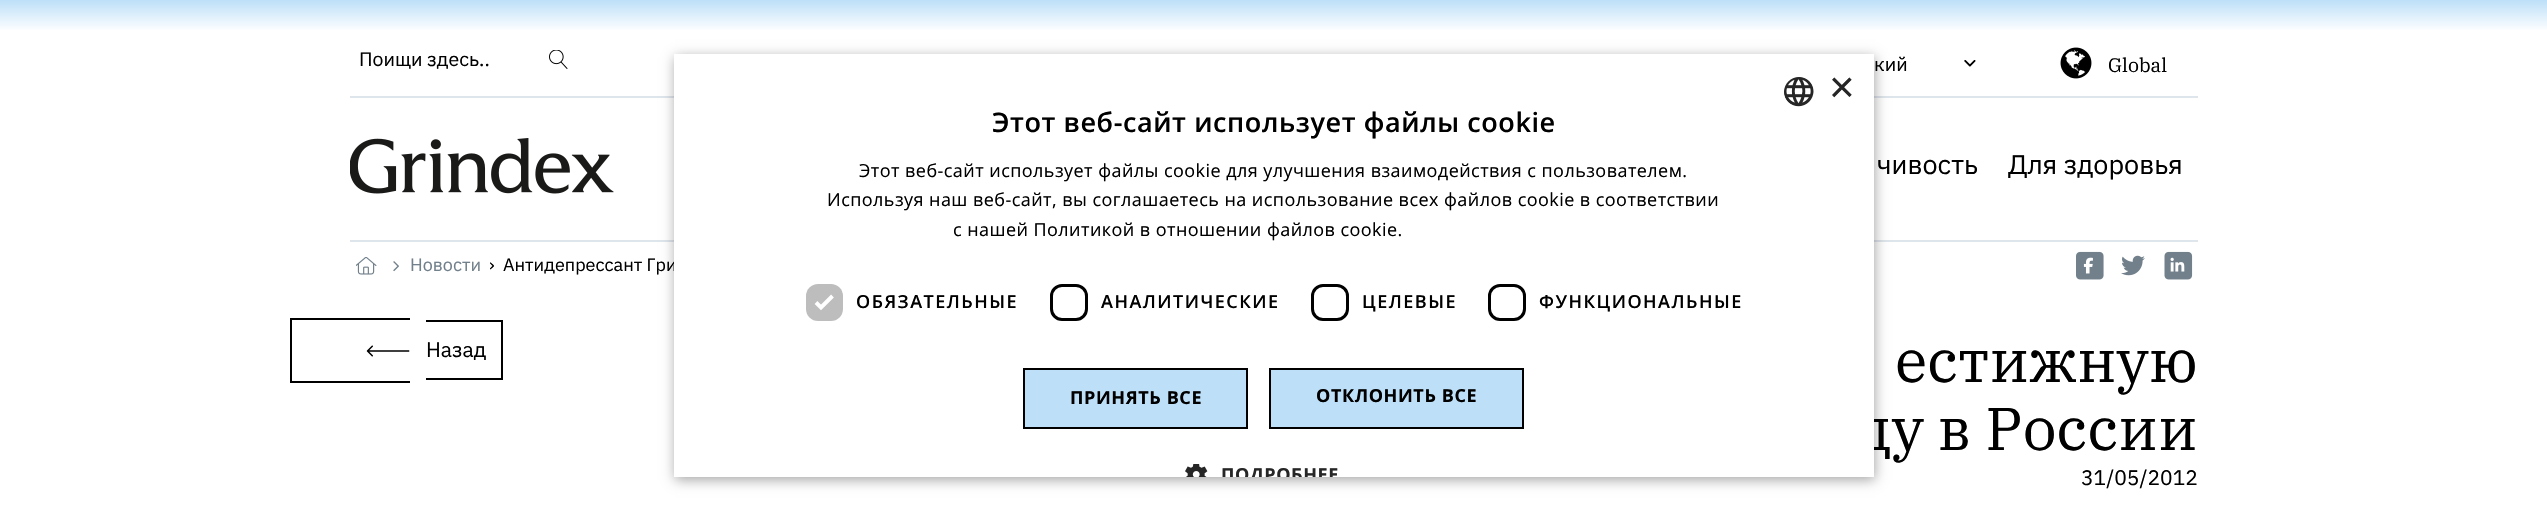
void draw(SkCanvas* canvas) {
    SkPaint paint;
    paint.setAntiAlias(true);
    auto face = [&](const char* family, int weight, float size, bool italic = false) {
        SkFontStyle style(weight, SkFontStyle::kNormal_Width,
            italic ? SkFontStyle::kItalic_Slant : SkFontStyle::kUpright_Slant);
        SkFont result(fontMgr->matchFamilyStyle(family, style), size);
        result.setSubpixel(true);
        return result;
    };
    auto write = [&](const char* s, float x, float y, const SkFont& font, SkColor color) {
        SkPaint ink(SkColor4f::FromColor(color));
        ink.setAntiAlias(true);
        canvas->drawString(s, x, y, font, ink);
    };
    auto writeSpaced = [&](const char* s, float x, float y, const SkFont& font, const SkPaint& ink, float letter, float word) {
        std::vector<SkGlyphID> glyphs(font.countText(s, strlen(s), SkTextEncoding::kUTF8));
        std::vector<float> xs(glyphs.size());
        font.textToGlyphs(s, strlen(s), SkTextEncoding::kUTF8, glyphs);
        font.getXPos(glyphs, xs, x);
        float extra = 0;
        for (size_t i = 0; i < glyphs.size(); i++) {
            xs[i] += extra;
            extra += letter + word * (glyphs[i] == font.unicharToGlyph(' '));
        }
        canvas->drawTextBlob(SkTextBlob::MakeFromPosHGlyphs(glyphs, xs, y, font), 0, 0, ink);
    };
    auto block = [&](float x, float y, float w, float h, SkColor color) {
        SkPaint ink(SkColor4f::FromColor(color));
        ink.setAntiAlias(true);
        canvas->drawRect(SkRect::MakeXYWH(x, y, w, h), ink);
    };
    auto card = [&](float x, float y, float w, float h, float radius, SkColor color) {
        SkPaint ink(SkColor4f::FromColor(color));
        ink.setAntiAlias(true);
        canvas->drawRoundRect(SkRect::MakeXYWH(x, y, w, h), radius, radius, ink);
    };
    auto paste = [&](const char* path, float x, float y, float w, float h) {
        auto image = SkImages::DeferredFromEncodedData(SkData::MakeFromFileName(path));
        canvas->drawImageRect(image, SkRect::MakeXYWH(x, y, w, h), SkSamplingOptions());
    };
    canvas->clear(SK_ColorWHITE);
    {
        const SkColor colors[] = {SkColorSetRGB(189, 223, 248), SK_ColorWHITE};
        const float stops[] = {0, 0.35f};
        const SkPoint ends[] = {{1274, 0}, {1274, 90}};
        paint.setShader(SkGradientShader::MakeLinear(ends, colors, stops, 2, SkTileMode::kClamp));
        paint.setAlpha(255);
    }
    canvas->drawRect(SkRect::MakeXYWH(0, 0, 2547, 30), paint);
    block(350, 96, 1848, 2, SkColorSetRGB(222, 229, 235));
    auto kFont1 = face("IBM Plex Sans", 400, 19.5f);
    write("Поищи здесь..", 359, 66, kFont1, SK_ColorBLACK);
    paste("pic1.png", 549, 50, 19, 19);
    write("кий", 1874, 71, kFont1, SK_ColorBLACK);
    paste("pic2.png", 1964, 60, 12, 7);
    paste("pic3.png", 2060, 47, 32, 32);
    auto kFont2 = face("IBM Plex Serif", 400, 19.5f);
    write("Global", 2108, 72, kFont2, SK_ColorBLACK);
    block(350, 240, 1848, 2, SkColorSetRGB(222, 229, 235));
    paint.setShader(nullptr);
    paint.setColor(SkColorSetARGB(89, 0, 0, 0));
    paint.setMaskFilter(SkMaskFilter::MakeBlur(kNormal_SkBlurStyle, 6));
    canvas->drawRect(SkRect::MakeXYWH(675, 57, 1200, 423), paint);
    paint.setMaskFilter(nullptr);
    auto kFont3 = face("IBM Plex Sans", 400, 18);
    write("Антидепрессант Гри", 503, 271, kFont3, SK_ColorBLACK);
    auto kFont4 = face("IBM Plex Serif", 400, 60);
    write("ду в России", 1855, 450, kFont4, SK_ColorBLACK);
    block(674, 54, 1200, 423, SK_ColorWHITE);
    paste("pic4.png", 1784, 77, 30, 30);
    auto kFont5 = face("Liberation Sans", 400, 44);
    write("×", 1829, 102, kFont5, SkColorSetRGB(38, 38, 38));
    auto kFont6 = face("Open Sans", 600, 27);
    paint.setColor(SK_ColorBLACK);
    writeSpaced("Этот веб-сайт использует файлы cookie", 992, 132, kFont6, paint, 0.6f, 0);
    auto kFont7 = face("Open Sans", 400, 18);
    writeSpaced("Этот веб-сайт использует файлы cookie для улучшения взаимодействия с пользователем.", 859, 177, kFont7, paint, 0.45f, 0);
    writeSpaced("Используя наш веб-сайт, вы соглашаетесь на использование всех файлов cookie в соответствии", 827, 206, kFont7, paint, 0.45f, 0);
    writeSpaced("с нашей Политикой в отношении файлов cookie.", 953, 236, kFont7, paint, 0.45f, 0);
    card(806, 284, 37, 37, 12, SkColorSetRGB(189, 189, 189));
    paint.setStyle(SkPaint::kStroke_Style);
    paint.setStrokeWidth(3.9f);
    paint.setColor(SK_ColorWHITE);
    canvas->drawPath(SkPathBuilder().moveTo(816, 302.5f).lineTo(821, 307.5f).lineTo(832.5f, 296).detach(), paint);
    auto kFont8 = face("Open Sans", 600, 18);
    paint.setStyle(SkPaint::kFill_Style);
    paint.setColor(SK_ColorBLACK);
    writeSpaced("ОБЯЗАТЕЛЬНЫЕ", 856, 308, kFont8, paint, 1.5f, 0);
    paint.setStyle(SkPaint::kStroke_Style);
    paint.setStrokeWidth(3);
    canvas->drawRoundRect(SkRect::MakeXYWH(1051.5f, 285.5f, 35, 34), 10.5f, 10.5f, paint);
    paint.setStyle(SkPaint::kFill_Style);
    writeSpaced("АНАЛИТИЧЕСКИЕ", 1101, 308, kFont8, paint, 1.5f, 0);
    paint.setStyle(SkPaint::kStroke_Style);
    canvas->drawRoundRect(SkRect::MakeXYWH(1312.5f, 285.5f, 35, 34), 10.5f, 10.5f, paint);
    paint.setStyle(SkPaint::kFill_Style);
    writeSpaced("ЦЕЛЕВЫЕ", 1362, 308, kFont8, paint, 1.5f, 0);
    paint.setStyle(SkPaint::kStroke_Style);
    canvas->drawRoundRect(SkRect::MakeXYWH(1489.5f, 285.5f, 35, 34), 10.5f, 10.5f, paint);
    paint.setStyle(SkPaint::kFill_Style);
    writeSpaced("ФУНКЦИОНАЛЬНЫЕ", 1539, 308, kFont8, paint, 1.5f, 0);
    paint.setColor(SkColorSetRGB(189, 223, 248));
    canvas->drawRect(SkRect::MakeXYWH(1024, 369, 223, 59), paint);
    paint.setStyle(SkPaint::kStroke_Style);
    paint.setStrokeWidth(2);
    paint.setColor(SK_ColorBLACK);
    canvas->drawRect(SkRect::MakeXYWH(1024, 369, 223, 59), paint);
    auto kFont9 = face("Open Sans", 700, 18);
    paint.setStyle(SkPaint::kFill_Style);
    writeSpaced("ПРИНЯТЬ ВСЕ", 1070, 404, kFont9, paint, 0.6f, 0);
    paint.setColor(SkColorSetRGB(189, 223, 248));
    canvas->drawRect(SkRect::MakeXYWH(1270, 369, 253, 59), paint);
    paint.setStyle(SkPaint::kStroke_Style);
    paint.setColor(SK_ColorBLACK);
    canvas->drawRect(SkRect::MakeXYWH(1270, 369, 253, 59), paint);
    paint.setStyle(SkPaint::kFill_Style);
    writeSpaced("ОТКЛОНИТЬ ВСЕ", 1316, 402, kFont9, paint, 0.6f, 0);
    paste("pic5.png", 1185, 464, 23, 13);
    canvas->save();
    canvas->clipRect(SkRect::MakeXYWH(674, 54, 1200, 423));
    paint.setColor(SkColorSetRGB(38, 38, 38));
    writeSpaced("ПОДРОБНЕЕ", 1221, 481, kFont9, paint, 0.6f, 0);
    canvas->restore();
    paste("pic6.png", 350, 138, 264, 56);
    auto kFont10 = face("IBM Plex Sans", 400, 27);
    write("чивость", 1877, 174, kFont10, SK_ColorBLACK);
    write("Для здоровья", 2008, 174, kFont10, SK_ColorBLACK);
    paste("pic7.png", 356, 257, 21, 18);
    paste("pic8.png", 393, 261, 6, 11);
    write("Новости", 410, 271, kFont3, SkColorSetRGB(113, 128, 139));
    write("›", 489, 271, kFont3, SK_ColorBLACK);
    paste("pic9.png", 2076, 251, 28, 29);
    paste("pic10.png", 2083, 257, 10, 17);
    paste("pic11.png", 2121, 255, 24, 21);
    paste("pic12.png", 2164, 251, 29, 29);
    paste("pic13.png", 2170, 257, 15, 15);
    block(290, 318, 120, 2, SK_ColorBLACK);
    block(290, 381, 120, 2, SK_ColorBLACK);
    block(290, 318, 2, 65, SK_ColorBLACK);
    block(426, 320, 77, 2, SK_ColorBLACK);
    block(501, 320, 2, 60, SK_ColorBLACK);
    block(426, 378, 77, 2, SK_ColorBLACK);
    paste("pic14.png", 366, 345, 44, 12);
    auto kFont11 = face("IBM Plex Sans", 400, 21);
    write("Назад", 426, 357, kFont11, SK_ColorBLACK);
    write("естижную", 1895, 382, kFont4, SK_ColorBLACK);
    write("31/05/2012", 2081, 485, kFont11, SK_ColorBLACK);
}
